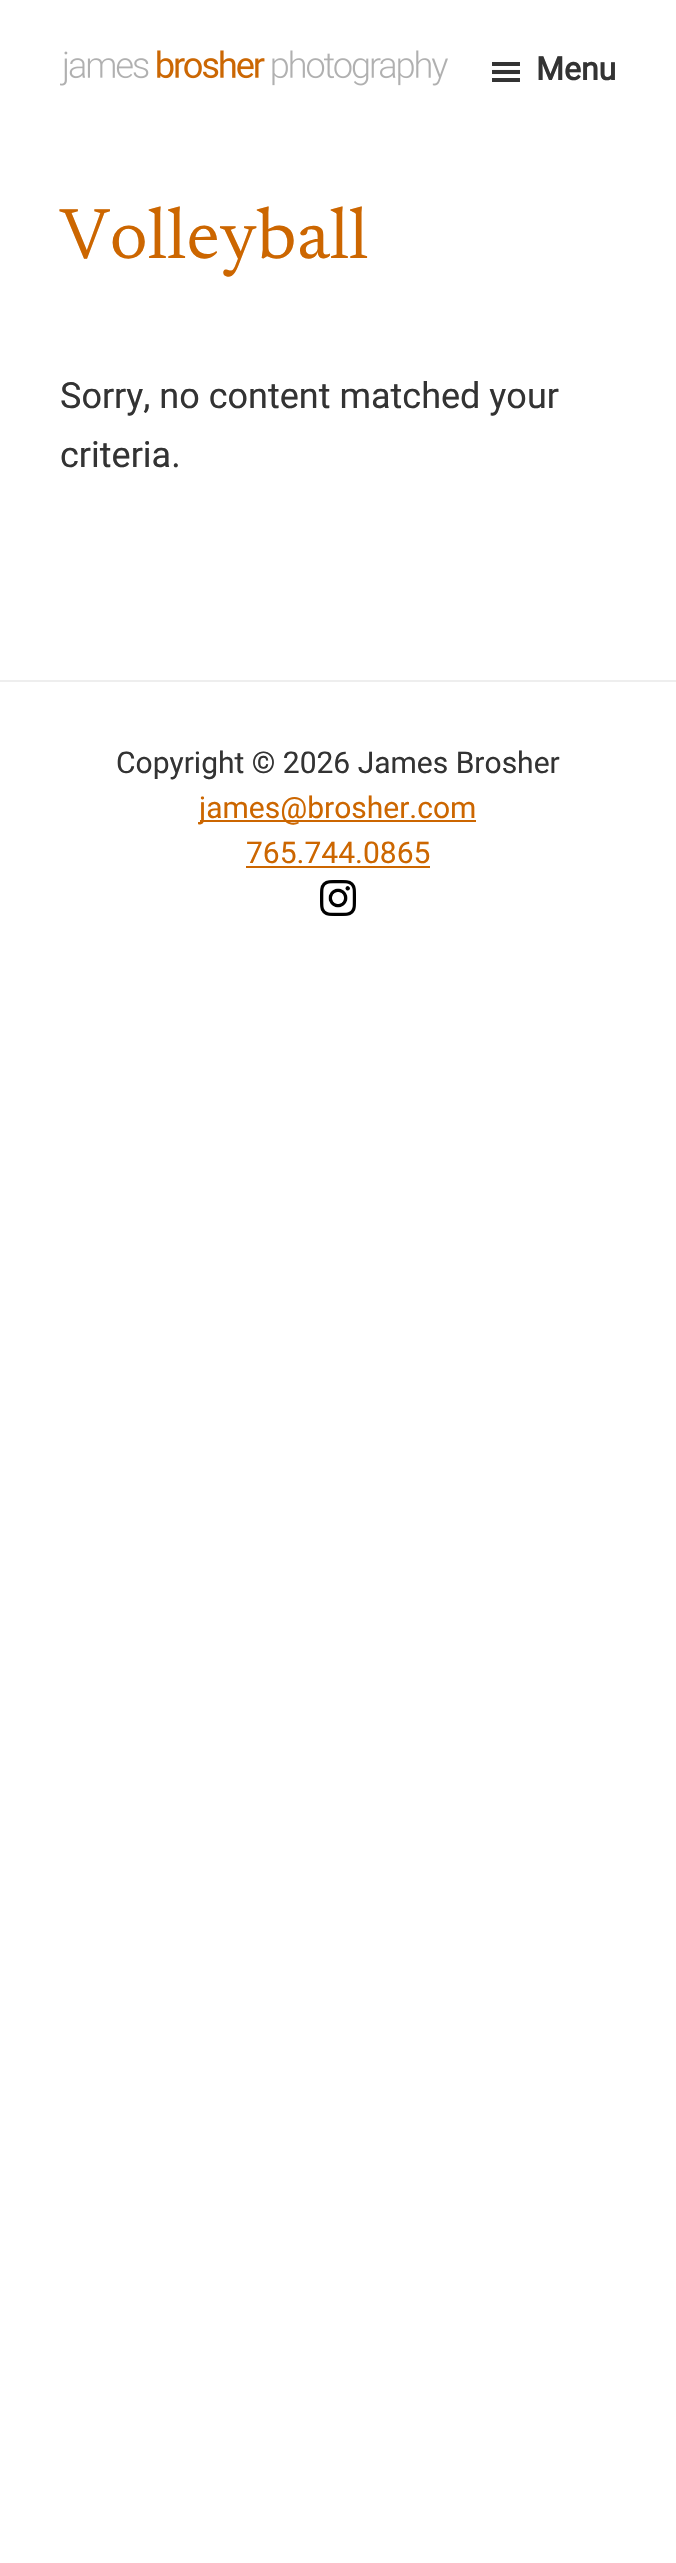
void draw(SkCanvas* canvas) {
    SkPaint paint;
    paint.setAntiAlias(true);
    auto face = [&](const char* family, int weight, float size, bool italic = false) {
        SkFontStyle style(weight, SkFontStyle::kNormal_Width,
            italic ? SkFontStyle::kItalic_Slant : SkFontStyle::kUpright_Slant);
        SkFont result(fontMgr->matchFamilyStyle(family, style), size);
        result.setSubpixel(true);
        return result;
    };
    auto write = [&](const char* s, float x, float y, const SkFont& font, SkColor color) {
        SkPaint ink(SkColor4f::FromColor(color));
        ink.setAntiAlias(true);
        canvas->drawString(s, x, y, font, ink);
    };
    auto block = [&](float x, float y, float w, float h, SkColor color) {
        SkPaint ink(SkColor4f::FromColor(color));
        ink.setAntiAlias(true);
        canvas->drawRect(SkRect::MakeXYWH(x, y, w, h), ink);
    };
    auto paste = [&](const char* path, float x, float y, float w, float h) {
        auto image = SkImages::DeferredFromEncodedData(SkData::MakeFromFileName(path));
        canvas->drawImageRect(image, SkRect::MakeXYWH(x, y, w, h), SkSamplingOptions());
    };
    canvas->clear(SK_ColorWHITE);
    paste("pic1.png", 60, 50, 388, 36);
    paste("pic2.png", 492, 62, 28, 20);
    auto kFont1 = face("Roboto", 700, 32);
    write("Menu", 536, 80, kFont1, SkColorSetRGB(51, 51, 51));
    auto kFont2 = face("Newsreader", 400, 72);
    write("Volleyball", 60, 258, kFont2, SkColorSetRGB(204, 102, 0));
    auto kFont3 = face("Roboto", 400, 36);
    write("Sorry, no content matched your", 60, 408, kFont3, SkColorSetRGB(51, 51, 51));
    write("criteria.", 60, 467, kFont3, SkColorSetRGB(51, 51, 51));
    block(0, 680, 676, 2, SkColorSetRGB(238, 238, 238));
    auto kFont4 = face("Roboto", 400, 30);
    write("Copyright © 2026 James Brosher", 116, 773, kFont4, SkColorSetRGB(51, 51, 51));
    block(200, 820, 276, 2, SkColorSetRGB(204, 102, 0));
    write("james@brosher.com", 199, 818, kFont4, SkColorSetRGB(204, 102, 0));
    write("765.744.0865", 246, 863, kFont4, SkColorSetRGB(204, 102, 0));
    block(246, 866, 184, 2, SkColorSetRGB(204, 102, 0));
    paste("pic3.png", 320, 880, 36, 36);
}
